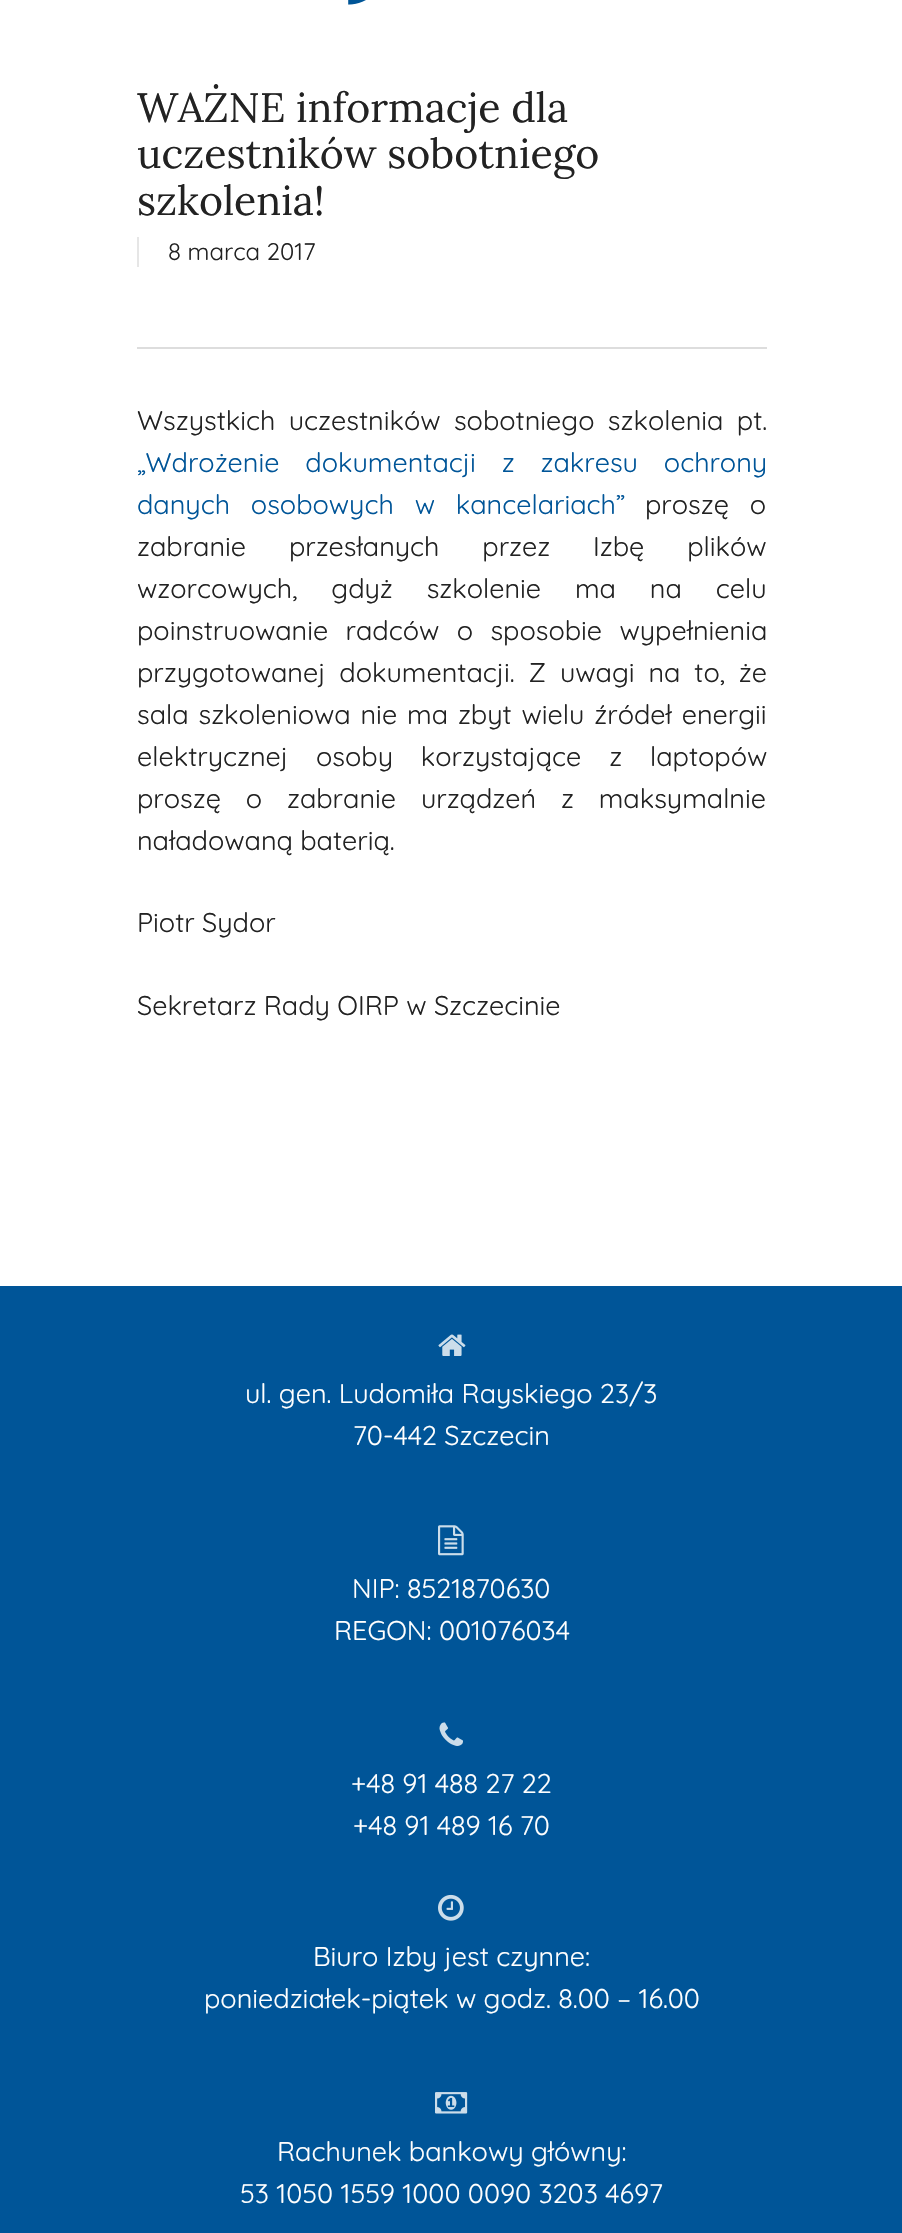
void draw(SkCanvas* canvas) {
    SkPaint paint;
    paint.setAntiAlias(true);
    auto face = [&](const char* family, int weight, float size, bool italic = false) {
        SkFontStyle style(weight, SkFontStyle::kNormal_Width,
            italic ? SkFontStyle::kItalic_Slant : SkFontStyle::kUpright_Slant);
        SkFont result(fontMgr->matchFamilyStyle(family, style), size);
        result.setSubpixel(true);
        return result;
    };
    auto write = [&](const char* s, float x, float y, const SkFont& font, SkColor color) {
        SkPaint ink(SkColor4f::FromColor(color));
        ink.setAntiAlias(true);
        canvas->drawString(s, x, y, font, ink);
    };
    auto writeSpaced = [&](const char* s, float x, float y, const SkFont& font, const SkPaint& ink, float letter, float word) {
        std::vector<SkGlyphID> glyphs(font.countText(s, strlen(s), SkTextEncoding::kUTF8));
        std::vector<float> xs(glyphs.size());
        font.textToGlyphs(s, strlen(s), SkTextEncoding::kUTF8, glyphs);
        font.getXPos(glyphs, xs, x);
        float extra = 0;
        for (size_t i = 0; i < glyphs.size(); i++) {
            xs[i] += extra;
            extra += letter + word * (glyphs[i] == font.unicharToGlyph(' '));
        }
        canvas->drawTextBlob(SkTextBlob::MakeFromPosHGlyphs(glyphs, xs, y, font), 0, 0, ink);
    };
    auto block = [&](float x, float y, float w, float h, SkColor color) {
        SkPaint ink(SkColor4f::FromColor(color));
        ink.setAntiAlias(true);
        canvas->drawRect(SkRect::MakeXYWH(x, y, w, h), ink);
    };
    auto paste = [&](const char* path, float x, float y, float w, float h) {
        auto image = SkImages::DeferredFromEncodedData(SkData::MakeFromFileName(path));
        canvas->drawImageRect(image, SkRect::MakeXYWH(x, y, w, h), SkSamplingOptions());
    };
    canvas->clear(SK_ColorWHITE);
    paste("pic1.png", 348, 0, 18, 5);
    block(137, 347, 630, 2, SkColorSetRGB(221, 221, 221));
    auto kFont1 = face("Lora", 400, 41);
    write("WAŻNE informacje dla", 137, 122, kFont1, SkColorSetRGB(34, 34, 34));
    write("uczestników sobotniego", 137, 168, kFont1, SkColorSetRGB(34, 34, 34));
    write("szkolenia!", 137, 215, kFont1, SkColorSetRGB(34, 34, 34));
    auto kFont2 = face("Quicksand", 400, 24);
    write("8 marca 2017", 168, 260, kFont2, SkColorSetRGB(34, 34, 34));
    block(137, 237, 2, 30, SkColorSetRGB(230, 230, 230));
    auto kFont3 = face("Quicksand", 400, 27);
    paint.setColor(SkColorSetRGB(34, 34, 34));
    writeSpaced("Wszystkich uczestników sobotniego szkolenia pt.", 137, 430, kFont3, paint, 0, 6);
    paint.setColor(SkColorSetRGB(0, 85, 152));
    writeSpaced("„Wdrożenie dokumentacji z zakresu ochrony", 137, 472, kFont3, paint, 0, 18.5f);
    writeSpaced("danych osobowych w kancelariach”", 137, 514, kFont3, paint, 0, 13.5f);
    paint.setColor(SkColorSetRGB(34, 34, 34));
    writeSpaced("proszę o", 645, 514, kFont3, paint, 0, 13.5f);
    writeSpaced("zabranie przesłanych przez Izbę plików", 137, 556, kFont3, paint, 0, 35.5f);
    writeSpaced("wzorcowych, gdyż szkolenie ma na celu", 137, 598, kFont3, paint, 0, 26.5f);
    writeSpaced("poinstruowanie radców o sposobie wypełnienia", 137, 640, kFont3, paint, 0, 10);
    writeSpaced("przygotowanej dokumentacji. Z uwagi na to, że", 137, 682, kFont3, paint, 0, 6.5f);
    writeSpaced("sala szkoleniowa nie ma zbyt wielu źródeł energii", 137, 724, kFont3, paint, 0, 2.5f);
    writeSpaced("elektrycznej osoby korzystające z laptopów", 137, 766, kFont3, paint, 0, 20.5f);
    writeSpaced("proszę o zabranie urządzeń z maksymalnie", 137, 808, kFont3, paint, 0, 17.5f);
    write("naładowaną baterią.", 137, 850, kFont3, SkColorSetRGB(34, 34, 34));
    write("Piotr Sydor", 137, 932, kFont3, SkColorSetRGB(34, 34, 34));
    write("Sekretarz Rady OIRP w Szczecinie", 137, 1015, kFont3, SkColorSetRGB(34, 34, 34));
    block(0, 1286, 902, 947, SkColorSetRGB(0, 85, 152));
    paste("pic2.png", 438, 1334, 28, 22);
    write("ul. gen. Ludomiła Rayskiego 23/3", 245, 1403, kFont3, SK_ColorWHITE);
    write("70-442 Szczecin", 353, 1445, kFont3, SK_ColorWHITE);
    paste("pic3.png", 438, 1525, 26, 31);
    write("NIP: 8521870630", 352, 1598, kFont3, SK_ColorWHITE);
    write("REGON: 001076034", 334, 1640, kFont3, SK_ColorWHITE);
    paste("pic4.png", 439, 1722, 24, 24);
    write("+48 91 488 27 22", 351, 1793, kFont3, SK_ColorWHITE);
    write("+48 91 489 16 70", 353, 1835, kFont3, SK_ColorWHITE);
    paste("pic5.png", 438, 1894, 26, 27);
    write("Biuro Izby jest czynne:", 313, 1966, kFont3, SK_ColorWHITE);
    write("poniedziałek-piątek w godz. 8.00 – 16.00", 204, 2008, kFont3, SK_ColorWHITE);
    paste("pic6.png", 435, 2092, 33, 22);
    write("Rachunek bankowy główny:", 277, 2161, kFont3, SK_ColorWHITE);
    write("53 1050 1559 1000 0090 3203 4697", 240, 2203, kFont3, SK_ColorWHITE);
}
